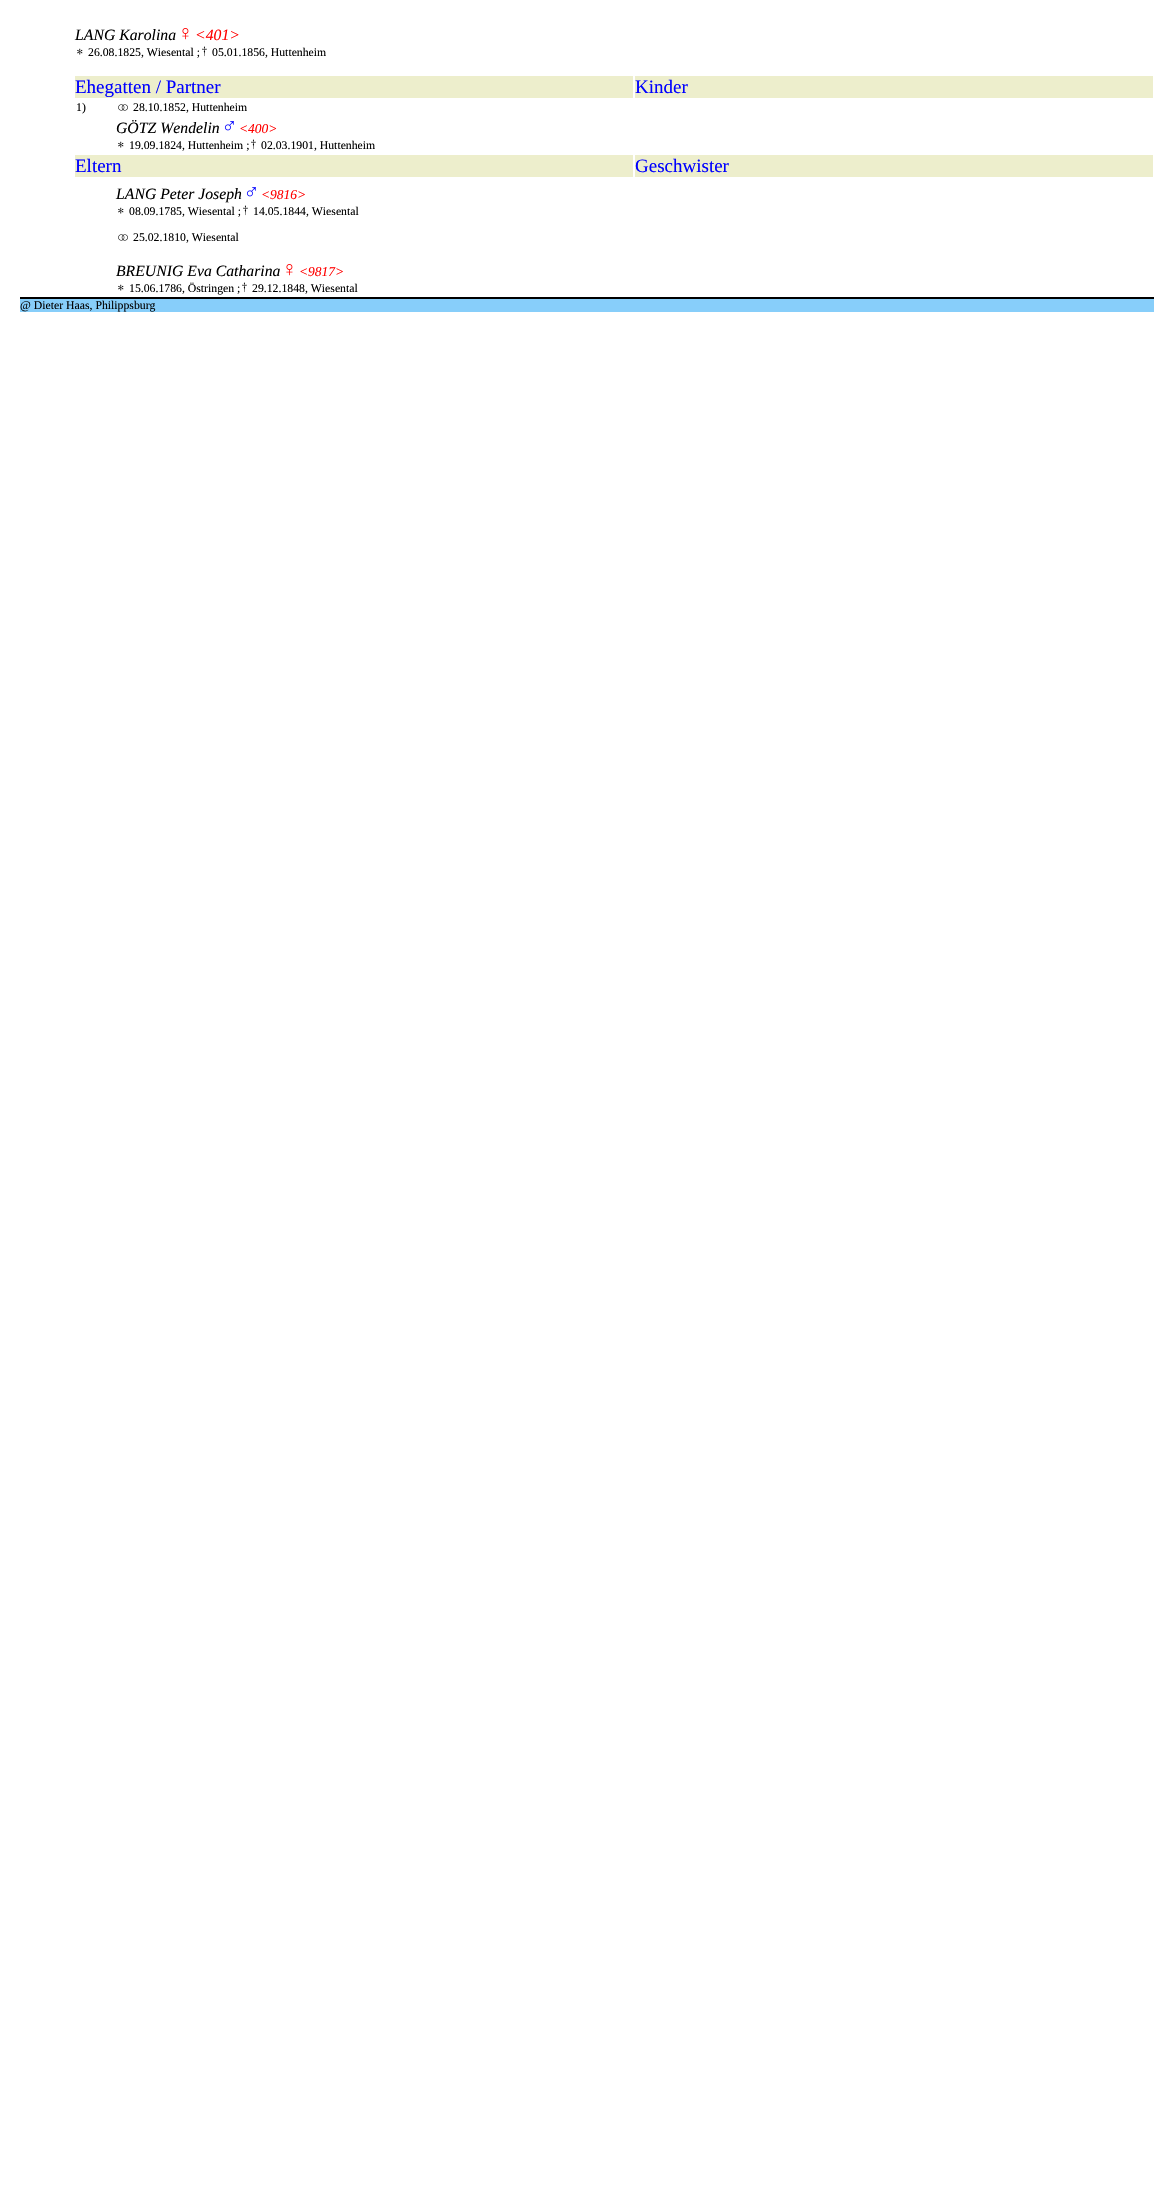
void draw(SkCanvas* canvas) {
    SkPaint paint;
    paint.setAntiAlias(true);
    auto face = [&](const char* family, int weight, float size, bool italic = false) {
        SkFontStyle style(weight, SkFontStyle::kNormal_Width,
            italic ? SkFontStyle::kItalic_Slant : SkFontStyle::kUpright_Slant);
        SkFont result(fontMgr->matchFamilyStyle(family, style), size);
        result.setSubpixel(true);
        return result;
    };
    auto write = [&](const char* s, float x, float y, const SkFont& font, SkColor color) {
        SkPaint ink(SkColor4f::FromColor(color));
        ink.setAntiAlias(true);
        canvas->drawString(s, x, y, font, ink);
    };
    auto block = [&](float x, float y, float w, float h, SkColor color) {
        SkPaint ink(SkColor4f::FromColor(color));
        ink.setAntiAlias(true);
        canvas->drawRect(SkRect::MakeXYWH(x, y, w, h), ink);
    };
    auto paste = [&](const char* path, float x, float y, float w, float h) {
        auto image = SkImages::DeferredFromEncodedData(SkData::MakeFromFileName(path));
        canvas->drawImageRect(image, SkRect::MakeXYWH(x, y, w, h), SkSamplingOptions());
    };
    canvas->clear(SK_ColorWHITE);
    auto kFont1 = face("Liberation Serif", 400, 15.75f, true);
    write("LANG Karolina", 75, 40, kFont1, SK_ColorBLACK);
    paste("pic1.png", 182, 28, 7, 12);
    write("<401>", 195, 40, kFont1, SkColorSetRGB(255, 0, 0));
    paste("pic2.png", 77, 48, 6, 7);
    auto kFont2 = face("Liberation Serif", 400, 11.75f);
    write("26.08.1825, Wiesental ;", 88, 56, kFont2, SK_ColorBLACK);
    paste("pic3.png", 202, 46, 5, 11);
    write("05.01.1856, Huttenheim", 212, 56, kFont2, SK_ColorBLACK);
    block(75, 76, 558, 22, SkColorSetRGB(237, 238, 204));
    auto kFont3 = face("Liberation Serif", 400, 19);
    write("Ehegatten / Partner", 75, 93, kFont3, SkColorSetRGB(0, 0, 255));
    block(635, 76, 518, 22, SkColorSetRGB(237, 238, 204));
    write("Kinder", 635, 93, kFont3, SkColorSetRGB(0, 0, 255));
    write("1)", 76, 111, kFont2, SK_ColorBLACK);
    paste("pic4.png", 118, 104, 10, 7);
    write("28.10.1852, Huttenheim", 133, 111, kFont2, SK_ColorBLACK);
    write("GÖTZ Wendelin", 116, 133, kFont1, SK_ColorBLACK);
    paste("pic5.png", 224, 121, 10, 10);
    auto kFont4 = face("Liberation Serif", 400, 13.5f, true);
    write("<400>", 239, 133, kFont4, SkColorSetRGB(255, 0, 0));
    paste("pic2.png", 118, 141, 6, 7);
    write("19.09.1824, Huttenheim ;", 129, 149, kFont2, SK_ColorBLACK);
    paste("pic3.png", 251, 139, 5, 11);
    write("02.03.1901, Huttenheim", 261, 149, kFont2, SK_ColorBLACK);
    block(75, 155, 558, 22, SkColorSetRGB(237, 238, 204));
    write("Eltern", 75, 172, kFont3, SkColorSetRGB(0, 0, 255));
    block(635, 155, 518, 22, SkColorSetRGB(237, 238, 204));
    write("Geschwister", 635, 172, kFont3, SkColorSetRGB(0, 0, 255));
    write("LANG Peter Joseph", 116, 199, kFont1, SK_ColorBLACK);
    paste("pic5.png", 246, 187, 10, 10);
    write("<9816>", 261, 199, kFont4, SkColorSetRGB(255, 0, 0));
    paste("pic2.png", 118, 207, 6, 7);
    write("08.09.1785, Wiesental ;", 129, 215, kFont2, SK_ColorBLACK);
    paste("pic3.png", 243, 205, 5, 11);
    write("14.05.1844, Wiesental", 253, 215, kFont2, SK_ColorBLACK);
    paste("pic4.png", 118, 234, 10, 7);
    write("25.02.1810, Wiesental", 133, 241, kFont2, SK_ColorBLACK);
    write("BREUNIG Eva Catharina", 116, 276, kFont1, SK_ColorBLACK);
    paste("pic1.png", 286, 264, 7, 12);
    write("<9817>", 299, 276, kFont4, SkColorSetRGB(255, 0, 0));
    paste("pic2.png", 118, 284, 6, 7);
    write("15.06.1786, Östringen ;", 129, 292, kFont2, SK_ColorBLACK);
    paste("pic3.png", 242, 282, 5, 11);
    write("29.12.1848, Wiesental", 252, 292, kFont2, SK_ColorBLACK);
    block(20, 299, 1134, 13, SkColorSetRGB(135, 206, 250));
    block(20, 297, 1134, 2, SK_ColorBLACK);
    write("@ Dieter Haas, Philippsburg", 20, 309, kFont2, SK_ColorBLACK);
}
